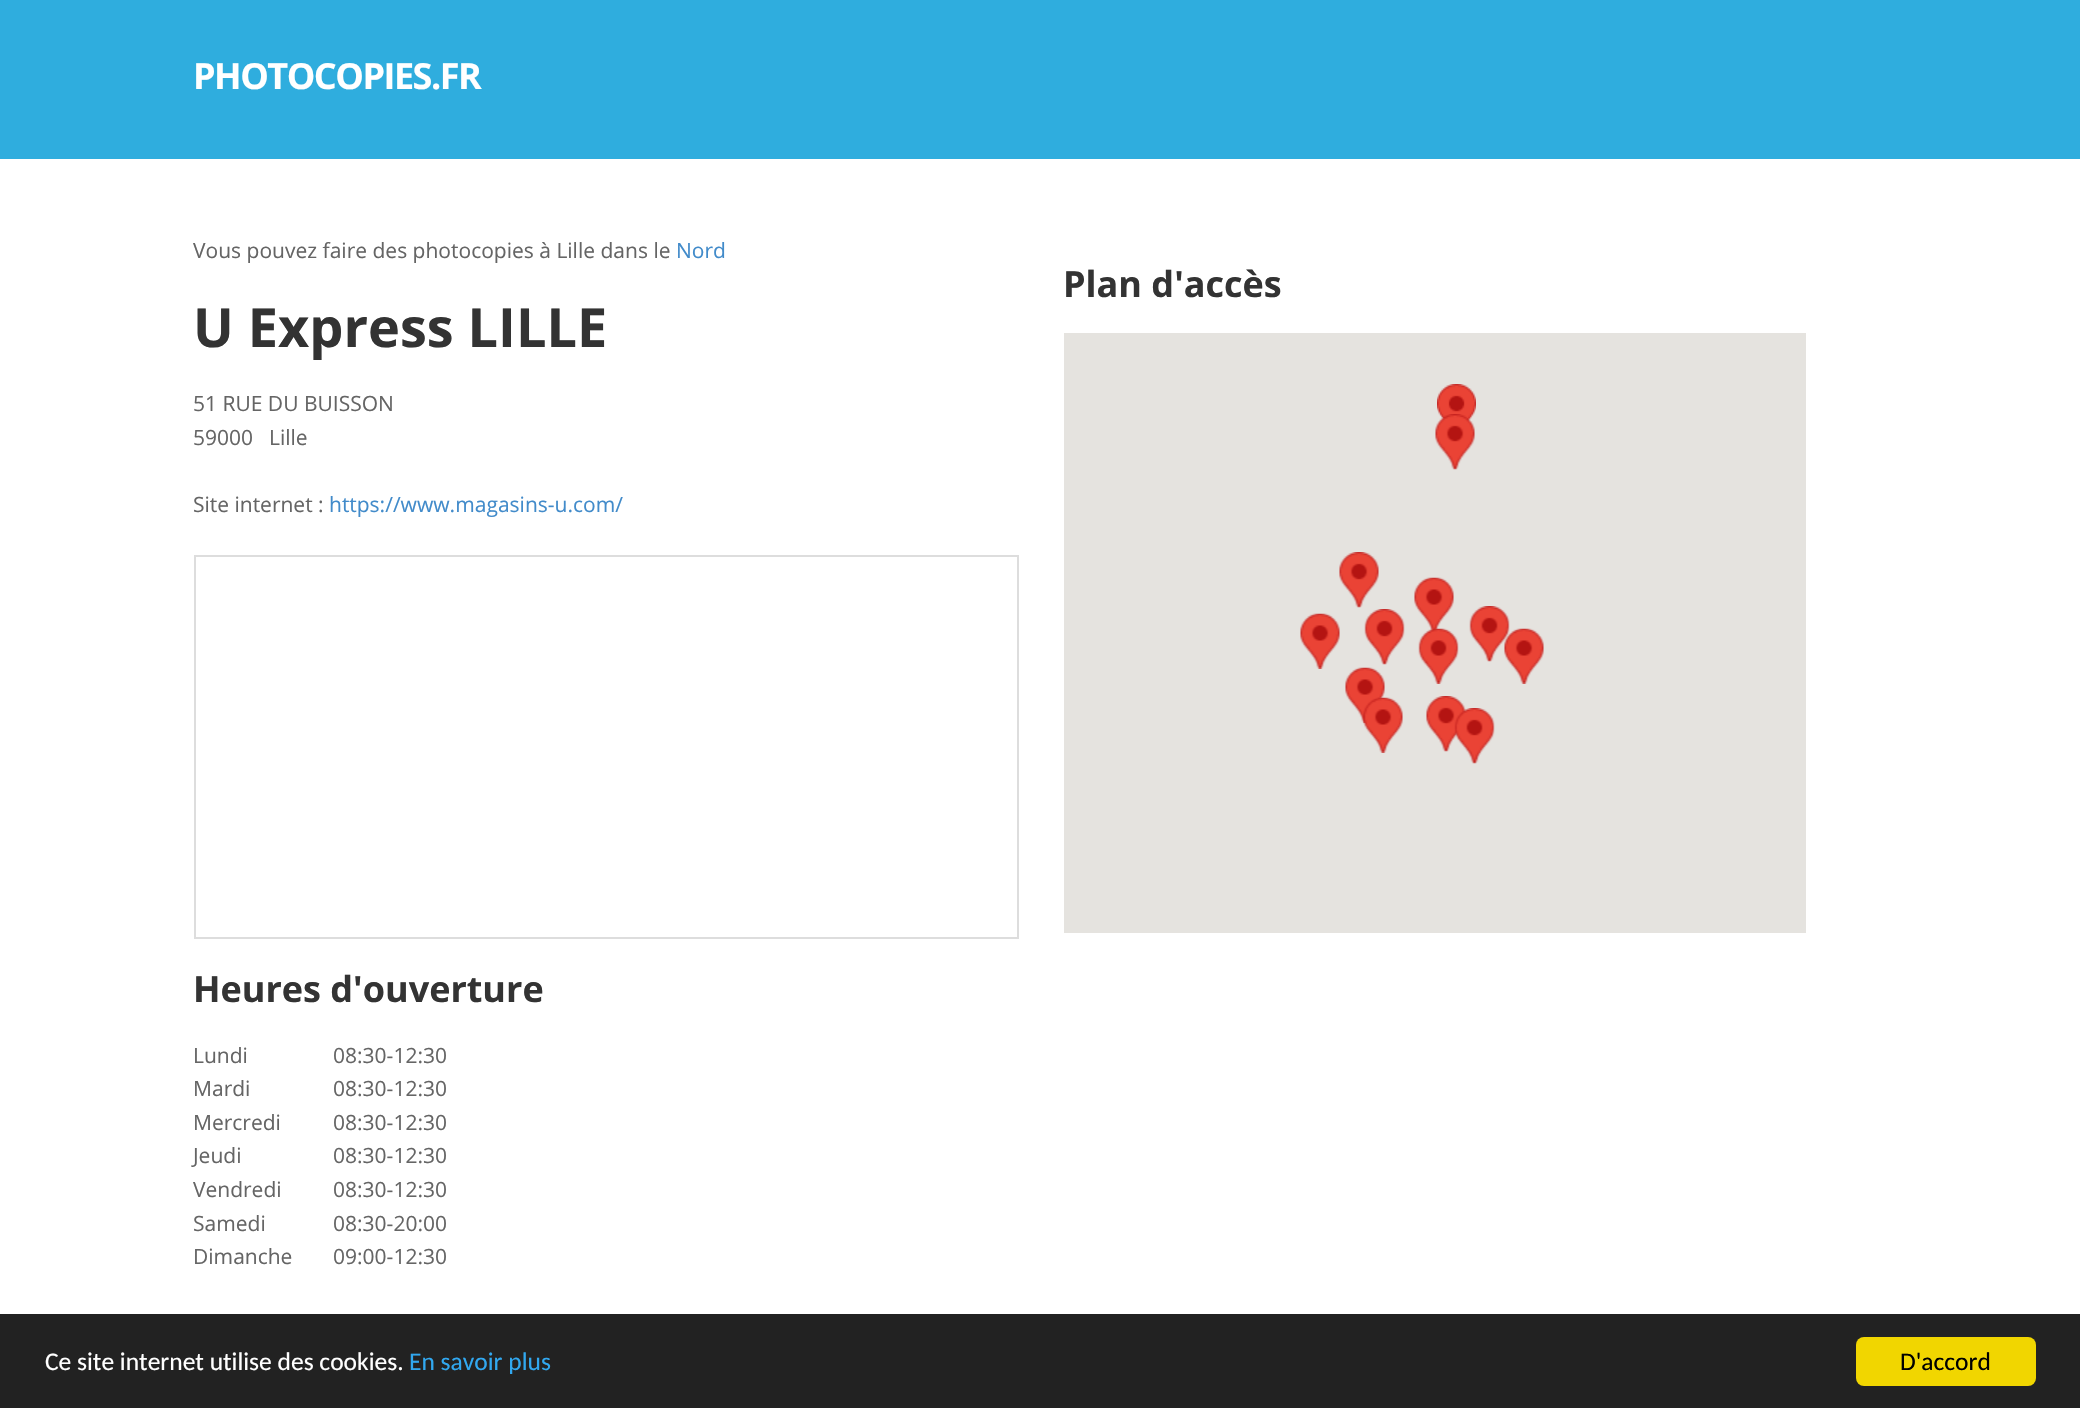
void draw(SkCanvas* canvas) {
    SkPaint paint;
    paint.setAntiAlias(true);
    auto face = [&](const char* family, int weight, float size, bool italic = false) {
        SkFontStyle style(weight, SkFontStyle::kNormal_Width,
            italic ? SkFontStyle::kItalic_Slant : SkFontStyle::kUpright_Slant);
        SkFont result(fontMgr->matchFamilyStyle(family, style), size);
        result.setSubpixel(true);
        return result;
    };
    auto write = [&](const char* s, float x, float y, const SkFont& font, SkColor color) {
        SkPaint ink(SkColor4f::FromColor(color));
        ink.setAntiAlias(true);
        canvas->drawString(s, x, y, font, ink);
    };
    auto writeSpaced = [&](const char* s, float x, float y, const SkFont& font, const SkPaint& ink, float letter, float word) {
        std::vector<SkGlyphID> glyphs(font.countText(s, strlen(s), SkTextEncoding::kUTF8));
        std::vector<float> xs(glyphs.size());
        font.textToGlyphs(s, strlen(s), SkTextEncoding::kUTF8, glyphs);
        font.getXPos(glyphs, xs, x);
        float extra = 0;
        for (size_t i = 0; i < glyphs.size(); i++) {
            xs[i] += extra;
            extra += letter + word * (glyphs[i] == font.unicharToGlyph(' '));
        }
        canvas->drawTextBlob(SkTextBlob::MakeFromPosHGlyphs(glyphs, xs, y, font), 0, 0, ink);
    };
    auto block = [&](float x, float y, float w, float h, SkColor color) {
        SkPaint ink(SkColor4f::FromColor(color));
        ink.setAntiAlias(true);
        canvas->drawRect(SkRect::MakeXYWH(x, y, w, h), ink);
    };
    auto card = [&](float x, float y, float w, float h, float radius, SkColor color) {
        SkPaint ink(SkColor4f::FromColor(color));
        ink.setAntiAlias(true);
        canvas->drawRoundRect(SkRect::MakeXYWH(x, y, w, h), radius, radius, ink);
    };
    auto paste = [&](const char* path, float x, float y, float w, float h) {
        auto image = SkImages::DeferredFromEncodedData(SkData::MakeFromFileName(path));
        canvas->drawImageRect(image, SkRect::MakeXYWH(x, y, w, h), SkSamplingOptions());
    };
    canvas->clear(SK_ColorWHITE);
    block(0, 0, 2080, 159, SkColorSetRGB(47, 173, 222));
    auto kFont1 = face("Open Sans", 700, 36);
    paint.setColor(SK_ColorWHITE);
    writeSpaced("PHOTOCOPIES.FR", 193, 89, kFont1, paint, -1.5f, 0);
    auto kFont2 = face("Open Sans", 400, 21);
    write("Vous pouvez faire des photocopies à Lille dans le", 193, 258, kFont2, SkColorSetRGB(101, 101, 101));
    write("Nord", 676, 258, kFont2, SkColorSetRGB(66, 139, 202));
    auto kFont3 = face("Open Sans", 700, 54);
    write("U Express LILLE", 193, 347, kFont3, SkColorSetRGB(51, 51, 51));
    write("51 RUE DU BUISSON", 193, 411, kFont2, SkColorSetRGB(101, 101, 101));
    write("59000", 193, 445, kFont2, SkColorSetRGB(101, 101, 101));
    write("Lille", 269, 445, kFont2, SkColorSetRGB(101, 101, 101));
    write("Site internet :", 193, 512, kFont2, SkColorSetRGB(101, 101, 101));
    write("https://www.magasins-u.com/", 329, 512, kFont2, SkColorSetRGB(66, 139, 202));
    paint.setStyle(SkPaint::kStroke_Style);
    paint.setStrokeWidth(2);
    paint.setColor(SkColorSetRGB(221, 221, 221));
    canvas->drawRect(SkRect::MakeXYWH(195, 556, 823, 382), paint);
    write("Heures d'ouverture", 193, 1002, kFont1, SkColorSetRGB(51, 51, 51));
    write("Lundi", 193, 1063, kFont2, SkColorSetRGB(101, 101, 101));
    write("08:30-12:30", 333, 1063, kFont2, SkColorSetRGB(101, 101, 101));
    write("Mardi", 193, 1096, kFont2, SkColorSetRGB(101, 101, 101));
    write("08:30-12:30", 333, 1096, kFont2, SkColorSetRGB(101, 101, 101));
    write("Mercredi", 193, 1130, kFont2, SkColorSetRGB(101, 101, 101));
    write("08:30-12:30", 333, 1130, kFont2, SkColorSetRGB(101, 101, 101));
    write("Jeudi", 193, 1163, kFont2, SkColorSetRGB(101, 101, 101));
    write("08:30-12:30", 333, 1163, kFont2, SkColorSetRGB(101, 101, 101));
    write("Vendredi", 193, 1197, kFont2, SkColorSetRGB(101, 101, 101));
    write("08:30-12:30", 333, 1197, kFont2, SkColorSetRGB(101, 101, 101));
    write("Samedi", 193, 1231, kFont2, SkColorSetRGB(101, 101, 101));
    write("08:30-20:00", 333, 1231, kFont2, SkColorSetRGB(101, 101, 101));
    write("Dimanche", 193, 1264, kFont2, SkColorSetRGB(101, 101, 101));
    write("09:00-12:30", 333, 1264, kFont2, SkColorSetRGB(101, 101, 101));
    write("Plan d'accès", 1063, 297, kFont1, SkColorSetRGB(51, 51, 51));
    block(1064, 333, 742, 600, SkColorSetRGB(229, 227, 223));
    paste("pic1.png", 1437, 384, 39, 38);
    paste("pic2.png", 1435, 414, 40, 56);
    paste("pic3.png", 1300, 613, 40, 56);
    paste("pic4.png", 1339, 552, 40, 56);
    paste("pic5.png", 1364, 609, 41, 56);
    paste("pic6.png", 1414, 577, 40, 55);
    paste("pic5.png", 1469, 606, 41, 56);
    paste("pic7.png", 1418, 628, 41, 56);
    paste("pic8.png", 1504, 628, 40, 56);
    paste("pic9.png", 1345, 667, 40, 56);
    paste("pic10.png", 1426, 696, 40, 56);
    paste("pic11.png", 1363, 697, 40, 56);
    paste("pic12.png", 1454, 708, 41, 56);
    block(0, 1314, 2080, 94, SkColorSetRGB(34, 34, 34));
    auto kFont4 = face("Carlito", 400, 25.5f);
    write("Ce site internet utilise des cookies.", 45, 1370, kFont4, SK_ColorWHITE);
    write("En savoir plus", 409, 1370, kFont4, SkColorSetRGB(49, 168, 240));
    card(1856, 1337, 180, 49, 8, SkColorSetRGB(241, 214, 0));
    write("D'accord", 1900, 1370, kFont4, SK_ColorBLACK);
}
